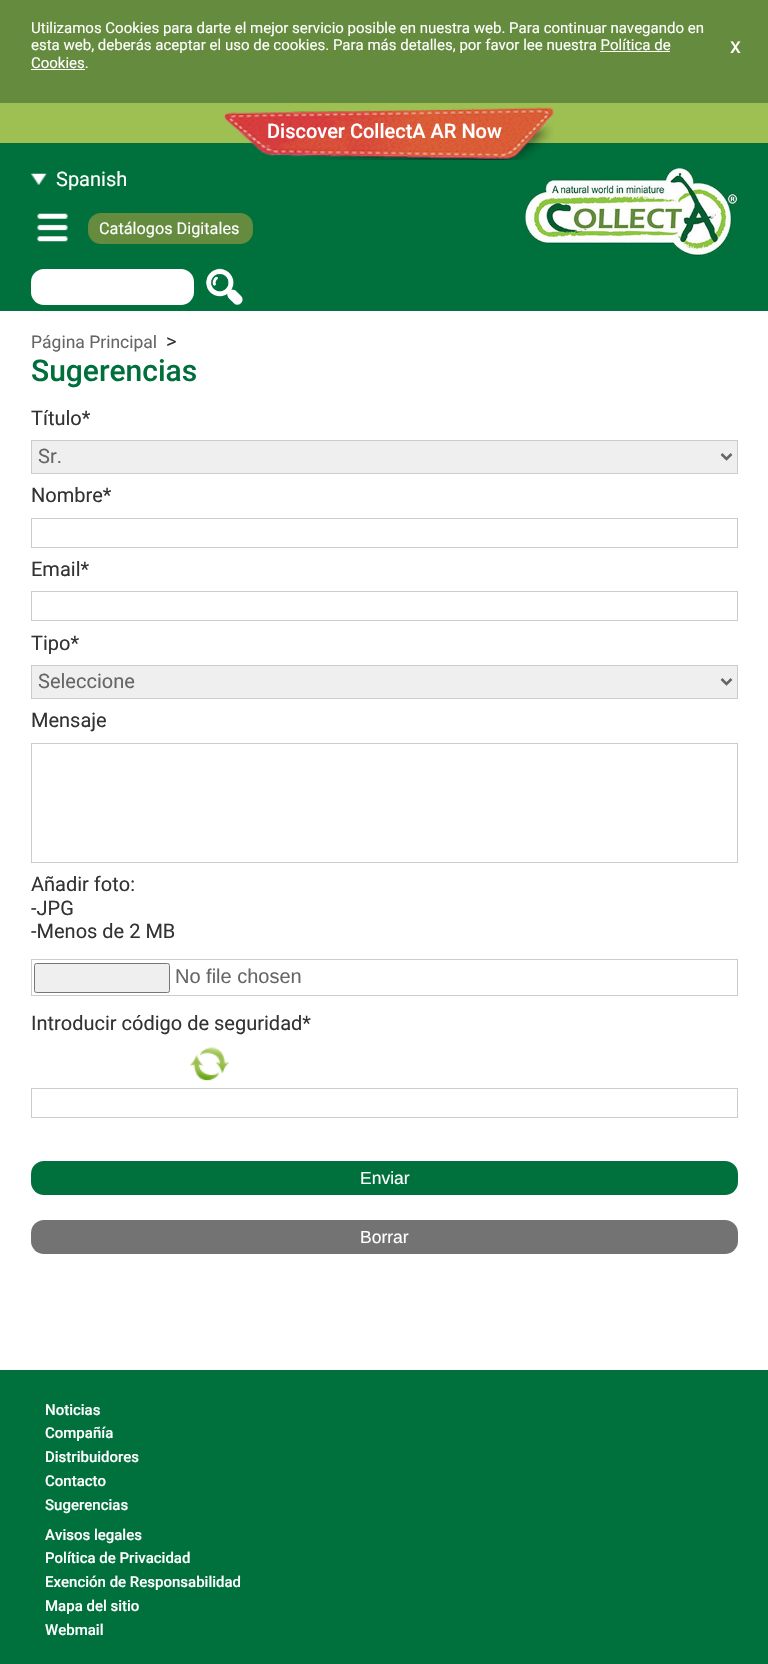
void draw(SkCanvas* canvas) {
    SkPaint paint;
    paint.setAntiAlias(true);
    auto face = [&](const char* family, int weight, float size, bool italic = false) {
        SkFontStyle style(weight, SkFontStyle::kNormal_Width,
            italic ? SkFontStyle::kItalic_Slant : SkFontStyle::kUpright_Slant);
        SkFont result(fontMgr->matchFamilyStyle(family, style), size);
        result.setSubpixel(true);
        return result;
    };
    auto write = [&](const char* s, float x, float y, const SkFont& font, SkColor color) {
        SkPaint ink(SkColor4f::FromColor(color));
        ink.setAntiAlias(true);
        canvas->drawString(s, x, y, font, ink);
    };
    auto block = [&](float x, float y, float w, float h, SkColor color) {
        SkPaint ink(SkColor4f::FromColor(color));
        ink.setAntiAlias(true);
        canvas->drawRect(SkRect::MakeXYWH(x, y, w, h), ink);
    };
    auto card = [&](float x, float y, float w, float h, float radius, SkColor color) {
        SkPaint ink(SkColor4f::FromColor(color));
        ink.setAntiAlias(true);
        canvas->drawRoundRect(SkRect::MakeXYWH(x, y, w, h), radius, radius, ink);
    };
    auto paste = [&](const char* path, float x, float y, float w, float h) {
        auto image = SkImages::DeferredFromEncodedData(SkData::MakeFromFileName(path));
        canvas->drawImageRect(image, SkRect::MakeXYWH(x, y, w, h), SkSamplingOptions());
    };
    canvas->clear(SK_ColorWHITE);
    block(0, 0, 768, 103, SkColorSetRGB(101, 139, 62));
    auto kFont1 = face("Roboto", 400, 15);
    write("Utilizamos Cookies para darte el mejor servicio posible en nuestra web. Para continuar navegando en", 31, 33, kFont1, SK_ColorWHITE);
    write("esta web, deberás aceptar el uso de cookies. Para más detalles, por favor lee nuestra Política de", 31, 50, kFont1, SK_ColorWHITE);
    write("Cookies.", 31, 68, kFont1, SK_ColorWHITE);
    block(600, 51, 70, 1, SK_ColorWHITE);
    block(31, 69, 54, 1, SK_ColorWHITE);
    auto kFont2 = face("Roboto", 400, 22);
    write("x", 730, 53, kFont2, SK_ColorWHITE);
    block(0, 103, 768, 40, SkColorSetRGB(158, 192, 82));
    block(0, 143, 768, 168, SkColorSetRGB(0, 112, 60));
    paste("pic1.png", 223, 107, 331, 53);
    auto kFont3 = face("Roboto", 500, 20);
    write("Discover CollectA AR Now", 267, 138, kFont3, SK_ColorWHITE);
    paste("pic2.png", 31, 173, 16, 12);
    auto kFont4 = face("Roboto", 400, 20);
    write("Spanish", 56, 186, kFont4, SK_ColorWHITE);
    paste("pic3.png", 37, 213, 31, 29);
    card(88, 213, 165, 31, 13, SkColorSetRGB(101, 139, 62));
    auto kFont5 = face("Roboto", 400, 16.25f);
    write("Catálogos Digitales", 99, 234, kFont5, SK_ColorWHITE);
    card(31, 269, 163, 36, 13, SK_ColorWHITE);
    paste("pic4.png", 206, 268, 37, 37);
    paste("pic5.png", 525, 167, 213, 89);
    auto kFont6 = face("Roboto", 400, 17.5f);
    write("Página Principal", 31, 348, kFont6, SkColorSetRGB(102, 102, 102));
    write(">", 166, 348, kFont4, SkColorSetRGB(51, 51, 51));
    auto kFont7 = face("Roboto", 500, 30);
    write("Sugerencias", 31, 381, kFont7, SkColorSetRGB(0, 111, 60));
    write("Título*", 31, 425, kFont4, SkColorSetRGB(51, 51, 51));
    paint.setColor(SkColorSetRGB(239, 239, 239));
    canvas->drawRect(SkRect::MakeXYWH(31.5f, 440.5f, 706, 33), paint);
    paint.setStyle(SkPaint::kStroke_Style);
    paint.setStrokeWidth(1);
    paint.setColor(SkColorSetRGB(204, 204, 204));
    canvas->drawRect(SkRect::MakeXYWH(31.5f, 440.5f, 706, 33), paint);
    paint.setStrokeWidth(2.5f);
    paint.setColor(SkColorSetRGB(102, 102, 102));
    canvas->drawPath(SkPathBuilder().moveTo(721.5f, 454).lineTo(726.5f, 459).lineTo(731.5f, 454).detach(), paint);
    write("Sr.", 38, 463, kFont4, SkColorSetRGB(102, 102, 102));
    write("Nombre*", 31, 502, kFont4, SkColorSetRGB(51, 51, 51));
    paint.setStrokeWidth(1);
    paint.setColor(SkColorSetRGB(204, 204, 204));
    canvas->drawRect(SkRect::MakeXYWH(31.5f, 518.5f, 706, 29), paint);
    write("Email*", 31, 576, kFont4, SkColorSetRGB(51, 51, 51));
    canvas->drawRect(SkRect::MakeXYWH(31.5f, 591.5f, 706, 29), paint);
    write("Tipo*", 31, 650, kFont4, SkColorSetRGB(51, 51, 51));
    paint.setStyle(SkPaint::kFill_Style);
    paint.setColor(SkColorSetRGB(239, 239, 239));
    canvas->drawRect(SkRect::MakeXYWH(31.5f, 665.5f, 706, 33), paint);
    paint.setStyle(SkPaint::kStroke_Style);
    paint.setColor(SkColorSetRGB(204, 204, 204));
    canvas->drawRect(SkRect::MakeXYWH(31.5f, 665.5f, 706, 33), paint);
    paint.setStrokeWidth(2.5f);
    paint.setColor(SkColorSetRGB(102, 102, 102));
    canvas->drawPath(SkPathBuilder().moveTo(721.5f, 679).lineTo(726.5f, 684).lineTo(731.5f, 679).detach(), paint);
    write("Seleccione", 38, 688, kFont4, SkColorSetRGB(102, 102, 102));
    write("Mensaje", 31, 727, kFont4, SkColorSetRGB(51, 51, 51));
    paint.setStrokeWidth(1);
    paint.setColor(SkColorSetRGB(204, 204, 204));
    canvas->drawRect(SkRect::MakeXYWH(31.5f, 743.5f, 706, 119), paint);
    write("Añadir foto:", 31, 891, kFont4, SkColorSetRGB(51, 51, 51));
    write("-JPG", 31, 915, kFont4, SkColorSetRGB(51, 51, 51));
    write("-Menos de 2 MB", 31, 938, kFont4, SkColorSetRGB(51, 51, 51));
    canvas->drawRect(SkRect::MakeXYWH(31.5f, 959.5f, 706, 36), paint);
    paint.setStyle(SkPaint::kFill_Style);
    paint.setColor(SkColorSetRGB(239, 239, 239));
    canvas->drawRoundRect(SkRect::MakeXYWH(34.5f, 963.5f, 135, 29), 2, 2, paint);
    paint.setStyle(SkPaint::kStroke_Style);
    paint.setColor(SkColorSetRGB(118, 118, 118));
    canvas->drawRoundRect(SkRect::MakeXYWH(34.5f, 963.5f, 135, 29), 2, 2, paint);
    auto kFont8 = face("Liberation Sans", 400, 20);
    write("No file chosen", 175, 983, kFont8, SkColorSetRGB(102, 102, 102));
    write("Introducir código de seguridad*", 31, 1030, kFont4, SkColorSetRGB(51, 51, 51));
    paste("pic6.png", 189, 1047, 40, 34);
    paint.setColor(SkColorSetRGB(204, 204, 204));
    canvas->drawRect(SkRect::MakeXYWH(31.5f, 1088.5f, 706, 29), paint);
    card(31, 1161, 707, 34, 13, SkColorSetRGB(0, 112, 60));
    auto kFont9 = face("Liberation Sans", 400, 17.5f);
    write("Enviar", 360, 1184, kFont9, SK_ColorWHITE);
    card(31, 1220, 707, 34, 13, SkColorSetRGB(115, 115, 115));
    write("Borrar", 360, 1243, kFont9, SK_ColorWHITE);
    block(0, 1370, 768, 294, SkColorSetRGB(0, 112, 60));
    auto kFont10 = face("Roboto", 500, 15);
    write("Noticias", 45, 1415, kFont10, SK_ColorWHITE);
    write("Compañía", 45, 1438, kFont10, SK_ColorWHITE);
    write("Distribuidores", 45, 1462, kFont10, SK_ColorWHITE);
    write("Contacto", 45, 1486, kFont10, SK_ColorWHITE);
    write("Sugerencias", 45, 1510, kFont10, SK_ColorWHITE);
    write("Avisos legales", 45, 1540, kFont10, SK_ColorWHITE);
    write("Política de Privacidad", 45, 1563, kFont10, SK_ColorWHITE);
    write("Exención de Responsabilidad", 45, 1587, kFont10, SK_ColorWHITE);
    write("Mapa del sitio", 45, 1611, kFont10, SK_ColorWHITE);
    write("Webmail", 45, 1635, kFont10, SK_ColorWHITE);
}
